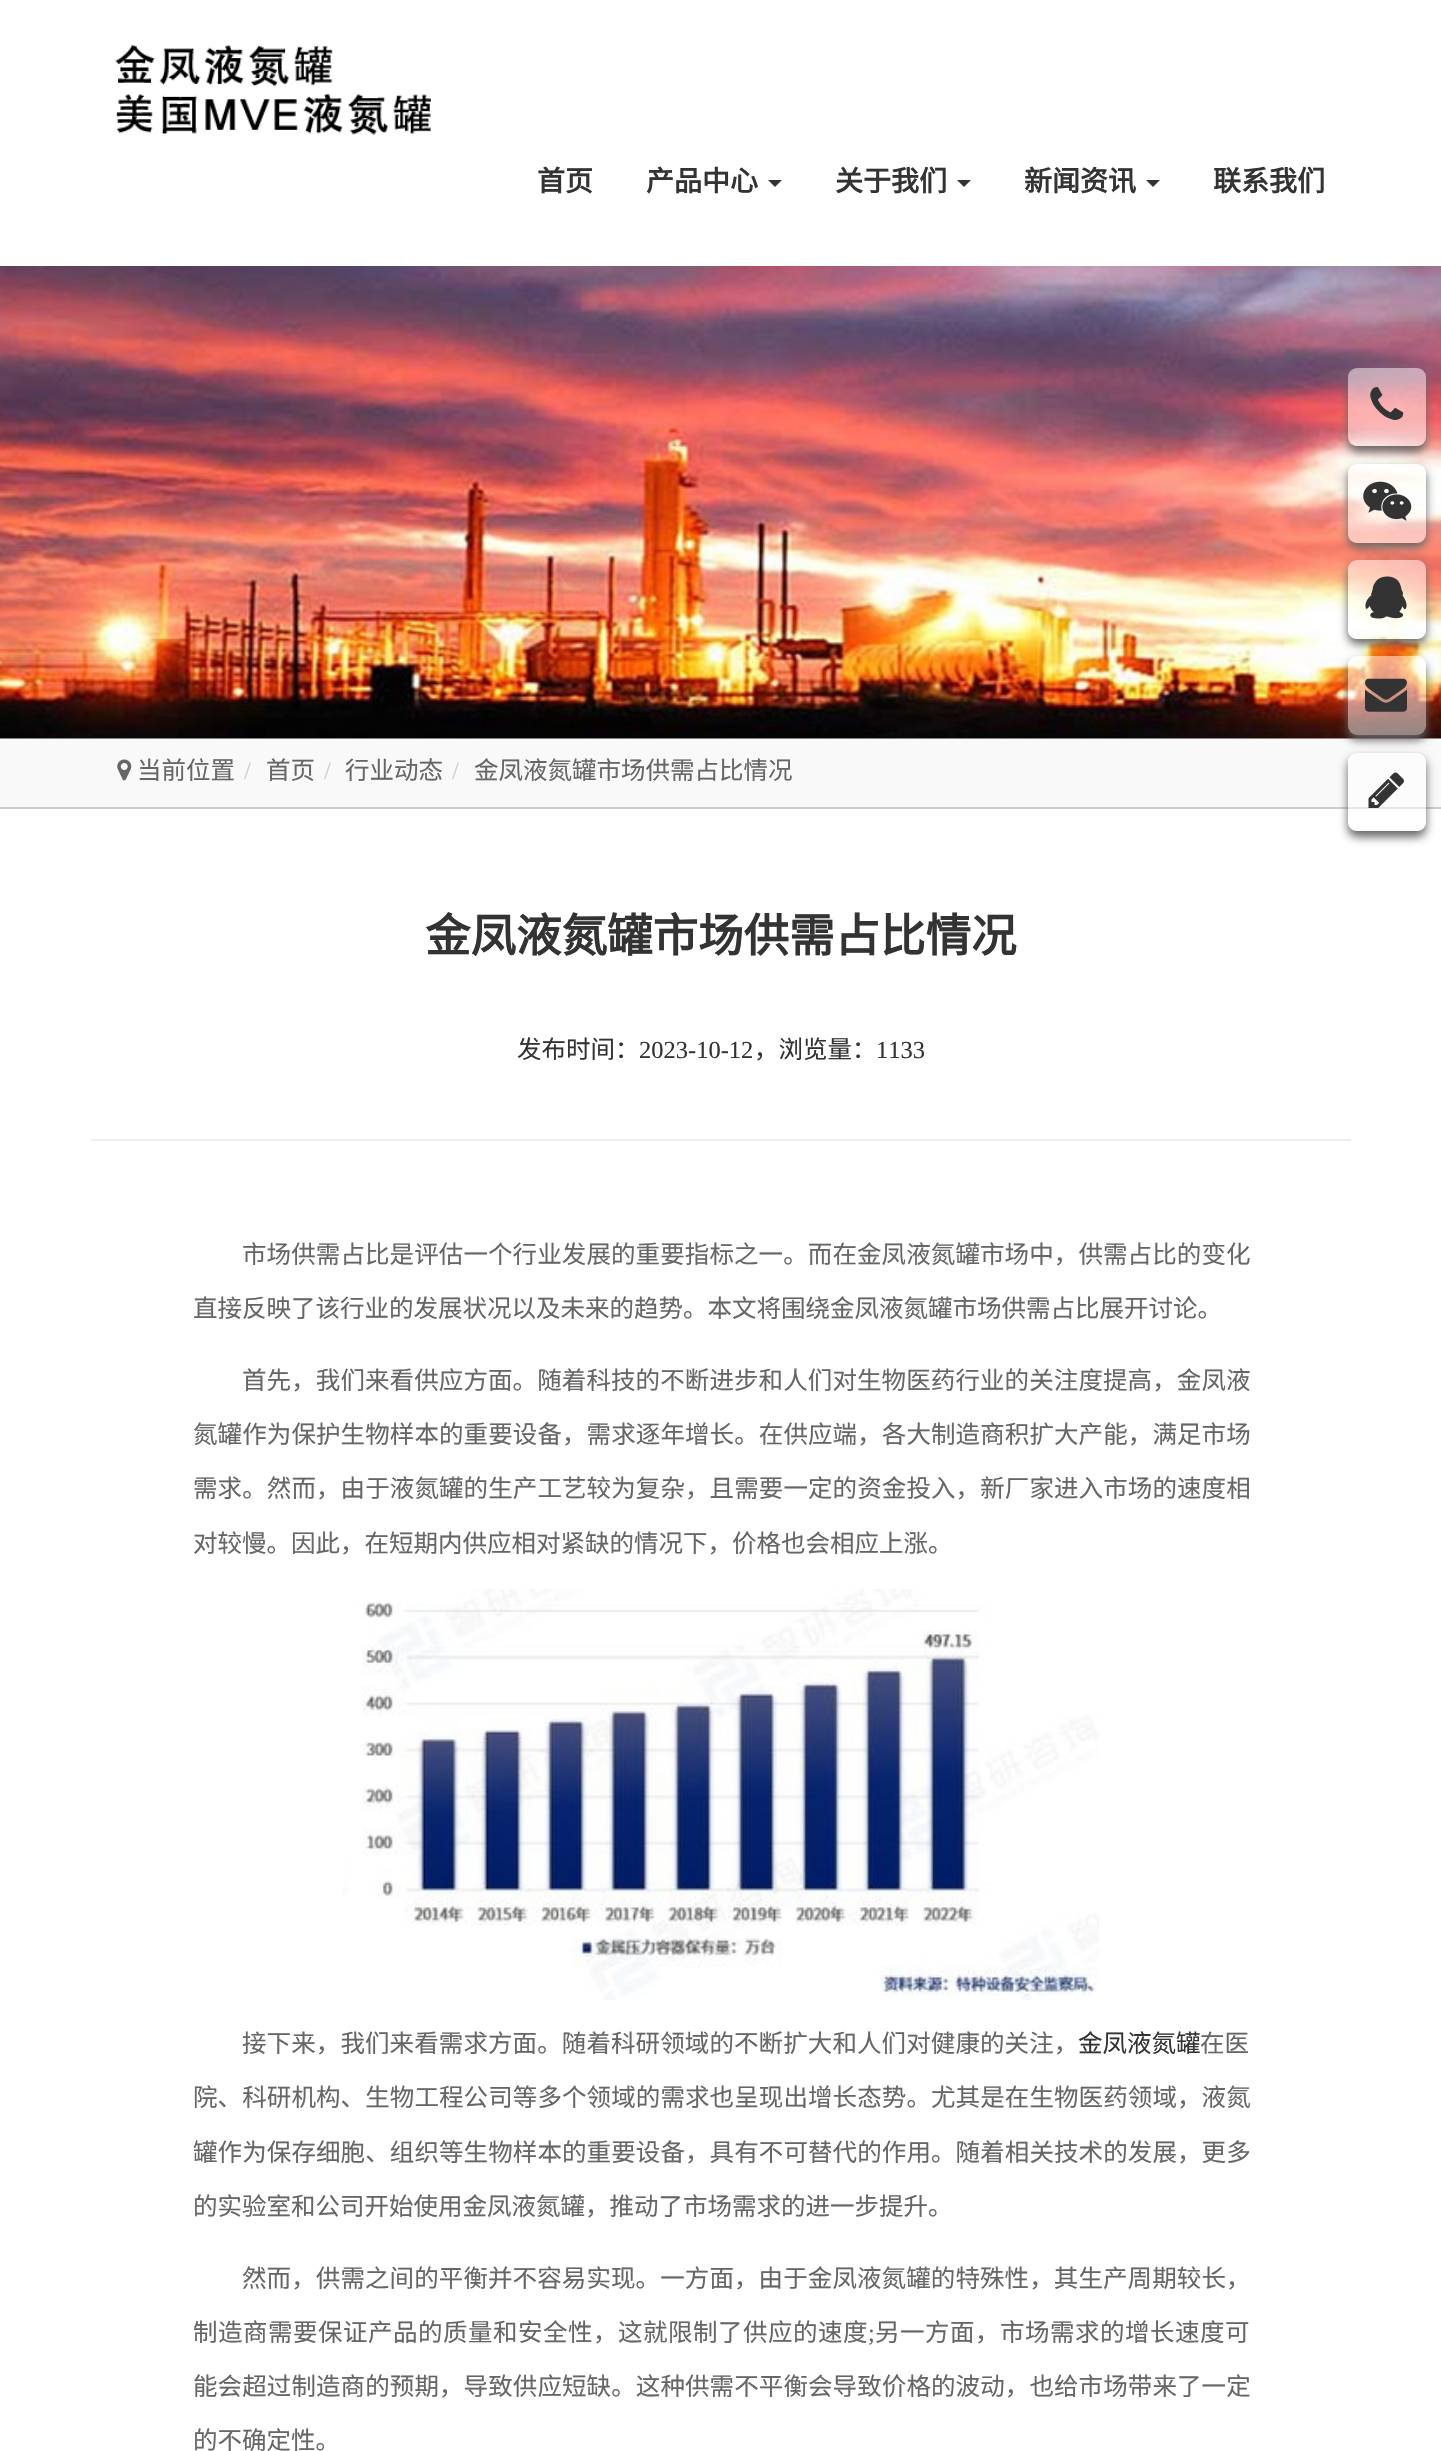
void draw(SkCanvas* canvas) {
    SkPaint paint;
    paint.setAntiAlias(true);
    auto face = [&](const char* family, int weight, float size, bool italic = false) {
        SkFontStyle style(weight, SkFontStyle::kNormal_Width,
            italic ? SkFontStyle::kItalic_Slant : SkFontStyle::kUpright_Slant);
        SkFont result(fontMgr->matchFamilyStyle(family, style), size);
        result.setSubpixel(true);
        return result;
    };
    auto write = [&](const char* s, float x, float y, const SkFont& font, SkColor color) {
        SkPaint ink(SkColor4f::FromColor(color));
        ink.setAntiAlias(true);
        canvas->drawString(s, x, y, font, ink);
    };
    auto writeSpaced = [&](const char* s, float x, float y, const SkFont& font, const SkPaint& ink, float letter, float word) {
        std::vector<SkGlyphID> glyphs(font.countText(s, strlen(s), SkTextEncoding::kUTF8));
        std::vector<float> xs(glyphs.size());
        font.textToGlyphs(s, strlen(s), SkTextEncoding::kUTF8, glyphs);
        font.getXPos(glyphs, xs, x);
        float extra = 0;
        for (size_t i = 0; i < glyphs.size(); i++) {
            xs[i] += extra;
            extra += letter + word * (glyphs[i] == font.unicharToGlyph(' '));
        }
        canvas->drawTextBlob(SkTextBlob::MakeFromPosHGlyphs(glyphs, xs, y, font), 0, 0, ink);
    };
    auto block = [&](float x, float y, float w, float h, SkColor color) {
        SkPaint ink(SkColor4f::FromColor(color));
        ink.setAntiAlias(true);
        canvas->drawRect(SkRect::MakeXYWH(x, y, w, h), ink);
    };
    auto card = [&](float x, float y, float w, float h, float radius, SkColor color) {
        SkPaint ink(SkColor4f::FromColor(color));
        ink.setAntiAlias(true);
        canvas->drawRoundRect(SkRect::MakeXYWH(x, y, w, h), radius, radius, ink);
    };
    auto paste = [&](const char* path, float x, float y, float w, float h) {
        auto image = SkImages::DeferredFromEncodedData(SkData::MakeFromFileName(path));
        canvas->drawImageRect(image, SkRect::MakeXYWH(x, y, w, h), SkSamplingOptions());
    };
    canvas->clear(SK_ColorWHITE);
    paste("pic1.png", 115, 45, 316, 90);
    auto kFont1 = face("Noto Sans CJK SC", 700, 28);
    write("首页", 537, 191, kFont1, SkColorSetRGB(51, 51, 51));
    write("产品中心", 646, 191, kFont1, SkColorSetRGB(51, 51, 51));
    paint.setColor(SkColorSetRGB(51, 51, 51));
    canvas->drawPath(SkPathBuilder().moveTo(768, 180).lineTo(782, 180).lineTo(775, 187).close().detach(), paint);
    write("关于我们", 835, 191, kFont1, SkColorSetRGB(51, 51, 51));
    canvas->drawPath(SkPathBuilder().moveTo(957, 180).lineTo(971, 180).lineTo(964, 187).close().detach(), paint);
    write("新闻资讯", 1024, 191, kFont1, SkColorSetRGB(51, 51, 51));
    canvas->drawPath(SkPathBuilder().moveTo(1146, 180).lineTo(1160, 180).lineTo(1153, 187).close().detach(), paint);
    write("联系我们", 1213, 191, kFont1, SkColorSetRGB(51, 51, 51));
    paste("pic2.png", 0, 266, 1441, 473);
    block(0, 739, 1441, 68, SkColorSetRGB(249, 249, 249));
    block(0, 807, 1441, 2, SkColorSetRGB(204, 204, 204));
    paste("pic3.png", 117, 759, 15, 22);
    auto kFont2 = face("Noto Sans CJK SC", 400, 24.5f);
    write("当前位置", 137, 779, kFont2, SkColorSetRGB(102, 102, 102));
    auto kFont3 = face("Liberation Serif", 400, 24.5f);
    write("/", 244, 779, kFont3, SkColorSetRGB(204, 204, 204));
    write("首页", 266, 779, kFont2, SkColorSetRGB(102, 102, 102));
    write("/", 324, 779, kFont3, SkColorSetRGB(204, 204, 204));
    write("行业动态", 345, 779, kFont2, SkColorSetRGB(102, 102, 102));
    write("/", 452, 779, kFont3, SkColorSetRGB(204, 204, 204));
    write("金凤液氮罐市场供需占比情况", 474, 779, kFont2, SkColorSetRGB(102, 102, 102));
    auto kFont4 = face("Noto Sans CJK SC", 700, 45.5f);
    write("金凤液氮罐市场供需占比情况", 425, 952, kFont4, SkColorSetRGB(51, 51, 51));
    write("发布时间：", 517, 1058, kFont2, SkColorSetRGB(51, 51, 51));
    write("2023-10-12", 639, 1058, kFont3, SkColorSetRGB(51, 51, 51));
    write("，浏览量：", 754, 1058, kFont2, SkColorSetRGB(51, 51, 51));
    write("1133", 876, 1058, kFont3, SkColorSetRGB(51, 51, 51));
    block(91, 1139, 1260, 2, SkColorSetRGB(238, 238, 238));
    paint.setColor(SkColorSetRGB(102, 102, 102));
    writeSpaced("市场供需占比是评估一个行业发展的重要指标之一。而在金凤液氮罐市场中，供需占比的变化", 242, 1263, kFont2, paint, 0.1f, 0);
    write("直接反映了该行业的发展状况以及未来的趋势。本文将围绕金凤液氮罐市场供需占比展开讨论。", 193, 1317, kFont2, SkColorSetRGB(102, 102, 102));
    writeSpaced("首先，我们来看供应方面。随着科技的不断进步和人们对生物医药行业的关注度提高，金凤液", 242, 1389, kFont2, paint, 0.1f, 0);
    writeSpaced("氮罐作为保护生物样本的重要设备，需求逐年增长。在供应端，各大制造商积扩大产能，满足市场", 193, 1443, kFont2, paint, 0.1f, 0);
    writeSpaced("需求。然而，由于液氮罐的生产工艺较为复杂，且需要一定的资金投入，新厂家进入市场的速度相", 193, 1497, kFont2, paint, 0.1f, 0);
    write("对较慢。因此，在短期内供应相对紧缺的情况下，价格也会相应上涨。", 193, 1552, kFont2, SkColorSetRGB(102, 102, 102));
    paste("pic4.png", 343, 1589, 756, 411);
    writeSpaced("接下来，我们来看需求方面。随着科研领域的不断扩大和人们对健康的关注，", 242, 2052, kFont2, paint, 0.1f, 0);
    write("金凤液氮罐", 1078, 2052, kFont2, SkColorSetRGB(51, 51, 51));
    write("在医", 1200, 2052, kFont2, SkColorSetRGB(102, 102, 102));
    writeSpaced("院、科研机构、生物工程公司等多个领域的需求也呈现出增长态势。尤其是在生物医药领域，液氮", 193, 2106, kFont2, paint, 0.1f, 0);
    writeSpaced("罐作为保存细胞、组织等生物样本的重要设备，具有不可替代的作用。随着相关技术的发展，更多", 193, 2161, kFont2, paint, 0.1f, 0);
    write("的实验室和公司开始使用金凤液氮罐，推动了市场需求的进一步提升。", 193, 2215, kFont2, SkColorSetRGB(102, 102, 102));
    writeSpaced("然而，供需之间的平衡并不容易实现。一方面，由于金凤液氮罐的特殊性，其生产周期较长，", 242, 2287, kFont2, paint, 0.1f, 0);
    writeSpaced("制造商需要保证产品的质量和安全性，这就限制了供应的速度", 193, 2341, kFont2, paint, 0.5f, 0);
    writeSpaced(";", 868, 2341, kFont3, paint, 0.5f, 0);
    writeSpaced("另一方面，市场需求的增长速度可", 875, 2341, kFont2, paint, 0.5f, 0);
    writeSpaced("能会超过制造商的预期，导致供应短缺。这种供需不平衡会导致价格的波动，也给市场带来了一定", 193, 2395, kFont2, paint, 0.1f, 0);
    write("的不确定性。", 193, 2449, kFont2, SkColorSetRGB(102, 102, 102));
    canvas->save();
    canvas->clipPath(SkPathBuilder(SkPathFillType::kEvenOdd).moveTo(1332, 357).lineTo(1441, 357).lineTo(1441, 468).lineTo(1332, 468).close().moveTo(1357, 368).lineTo(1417, 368).cubicTo(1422, 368, 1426, 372, 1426, 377).lineTo(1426, 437).cubicTo(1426, 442, 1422, 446, 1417, 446).lineTo(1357, 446).cubicTo(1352, 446, 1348, 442, 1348, 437).lineTo(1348, 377).cubicTo(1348, 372, 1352, 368, 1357, 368).close().detach(), true);
    paint.setMaskFilter(SkMaskFilter::MakeBlur(kNormal_SkBlurStyle, 5));
    canvas->drawRoundRect(SkRect::MakeXYWH(1348, 373, 78, 79), 9, 9, paint);
    paint.setMaskFilter(nullptr);
    canvas->restore();
    card(1348, 368, 78, 78, 9, SkColorSetARGB(128, 255, 255, 255));
    paste("pic5.png", 1370, 387, 34, 33);
    canvas->save();
    canvas->clipPath(SkPathBuilder(SkPathFillType::kEvenOdd).moveTo(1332, 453).lineTo(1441, 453).lineTo(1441, 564).lineTo(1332, 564).close().moveTo(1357, 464).lineTo(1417, 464).cubicTo(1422, 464, 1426, 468, 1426, 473).lineTo(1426, 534).cubicTo(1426, 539, 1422, 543, 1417, 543).lineTo(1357, 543).cubicTo(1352, 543, 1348, 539, 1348, 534).lineTo(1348, 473).cubicTo(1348, 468, 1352, 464, 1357, 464).close().detach(), true);
    paint.setMaskFilter(SkMaskFilter::MakeBlur(kNormal_SkBlurStyle, 5));
    canvas->drawRoundRect(SkRect::MakeXYWH(1348, 469, 78, 79), 9, 9, paint);
    paint.setMaskFilter(nullptr);
    canvas->restore();
    card(1348, 464, 78, 79, 9, SkColorSetARGB(128, 255, 255, 255));
    paste("pic6.png", 1363, 481, 49, 40);
    canvas->save();
    canvas->clipPath(SkPathBuilder(SkPathFillType::kEvenOdd).moveTo(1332, 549).lineTo(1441, 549).lineTo(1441, 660).lineTo(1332, 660).close().moveTo(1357, 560).lineTo(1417, 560).cubicTo(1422, 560, 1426, 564, 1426, 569).lineTo(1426, 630).cubicTo(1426, 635, 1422, 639, 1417, 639).lineTo(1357, 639).cubicTo(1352, 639, 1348, 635, 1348, 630).lineTo(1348, 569).cubicTo(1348, 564, 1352, 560, 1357, 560).close().detach(), true);
    paint.setMaskFilter(SkMaskFilter::MakeBlur(kNormal_SkBlurStyle, 5));
    canvas->drawRoundRect(SkRect::MakeXYWH(1348, 565, 78, 79), 9, 9, paint);
    paint.setMaskFilter(nullptr);
    canvas->restore();
    card(1348, 560, 78, 79, 9, SkColorSetARGB(128, 255, 255, 255));
    paste("pic7.png", 1365, 576, 42, 43);
    canvas->save();
    canvas->clipPath(SkPathBuilder(SkPathFillType::kEvenOdd).moveTo(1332, 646).lineTo(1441, 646).lineTo(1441, 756).lineTo(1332, 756).close().moveTo(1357, 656).lineTo(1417, 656).cubicTo(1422, 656, 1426, 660, 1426, 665).lineTo(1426, 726).cubicTo(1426, 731, 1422, 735, 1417, 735).lineTo(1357, 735).cubicTo(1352, 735, 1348, 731, 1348, 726).lineTo(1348, 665).cubicTo(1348, 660, 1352, 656, 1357, 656).close().detach(), true);
    paint.setMaskFilter(SkMaskFilter::MakeBlur(kNormal_SkBlurStyle, 5));
    canvas->drawRoundRect(SkRect::MakeXYWH(1348, 662, 78, 78), 9, 9, paint);
    paint.setMaskFilter(nullptr);
    canvas->restore();
    card(1348, 656, 78, 79, 9, SkColorSetARGB(128, 255, 255, 255));
    paste("pic8.png", 1365, 678, 42, 34);
    canvas->save();
    canvas->clipPath(SkPathBuilder(SkPathFillType::kEvenOdd).moveTo(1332, 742).lineTo(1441, 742).lineTo(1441, 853).lineTo(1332, 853).close().moveTo(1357, 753).lineTo(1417, 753).cubicTo(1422, 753, 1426, 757, 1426, 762).lineTo(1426, 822).cubicTo(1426, 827, 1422, 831, 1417, 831).lineTo(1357, 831).cubicTo(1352, 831, 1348, 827, 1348, 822).lineTo(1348, 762).cubicTo(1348, 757, 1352, 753, 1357, 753).close().detach(), true);
    paint.setMaskFilter(SkMaskFilter::MakeBlur(kNormal_SkBlurStyle, 5));
    canvas->drawRoundRect(SkRect::MakeXYWH(1348, 758, 78, 79), 9, 9, paint);
    paint.setMaskFilter(nullptr);
    canvas->restore();
    card(1348, 753, 78, 78, 9, SkColorSetARGB(128, 255, 255, 255));
    paste("pic9.png", 1368, 772, 36, 36);
}
